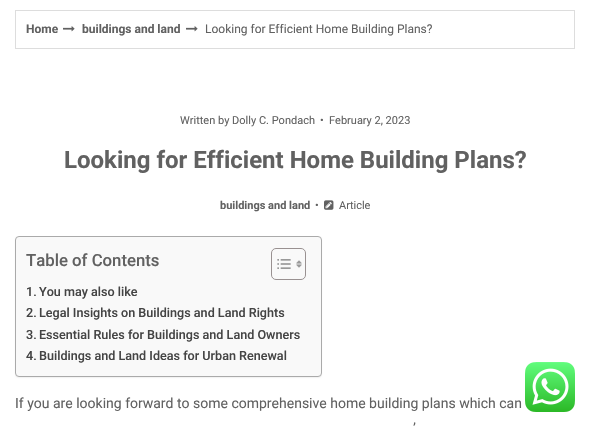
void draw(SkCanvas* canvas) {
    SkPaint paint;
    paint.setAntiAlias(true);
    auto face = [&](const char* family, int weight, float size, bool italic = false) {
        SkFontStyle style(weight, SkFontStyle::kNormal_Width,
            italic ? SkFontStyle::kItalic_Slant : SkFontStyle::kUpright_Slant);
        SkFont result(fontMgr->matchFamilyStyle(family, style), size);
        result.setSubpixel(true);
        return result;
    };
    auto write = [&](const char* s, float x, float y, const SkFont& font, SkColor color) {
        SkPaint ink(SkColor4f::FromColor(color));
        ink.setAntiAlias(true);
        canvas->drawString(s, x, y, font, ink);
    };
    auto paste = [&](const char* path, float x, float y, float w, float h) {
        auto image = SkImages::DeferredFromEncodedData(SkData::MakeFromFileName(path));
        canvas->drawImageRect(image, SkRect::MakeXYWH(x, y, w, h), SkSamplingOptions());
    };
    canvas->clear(SK_ColorWHITE);
    paint.setStyle(SkPaint::kStroke_Style);
    paint.setStrokeWidth(1);
    paint.setColor(SkColorSetRGB(221, 221, 221));
    canvas->drawRect(SkRect::MakeXYWH(15.5f, 10.5f, 559, 38), paint);
    auto kFont1 = face("Roboto", 700, 12);
    write("Home", 26, 33, kFont1, SkColorSetRGB(97, 97, 97));
    paste("pic1.png", 63, 26, 12, 6);
    write("buildings and land", 82, 33, kFont1, SkColorSetRGB(97, 97, 97));
    paste("pic1.png", 186, 26, 12, 6);
    auto kFont2 = face("Roboto", 400, 12);
    write("Looking for Efficient Home Building Plans?", 205, 33, kFont2, SkColorSetRGB(97, 97, 97));
    auto kFont3 = face("Roboto", 400, 11);
    write("Written by Dolly C. Pondach", 180, 124, kFont3, SkColorSetRGB(97, 97, 97));
    write("•", 320, 124, kFont3, SkColorSetRGB(97, 97, 97));
    write("February 2, 2023", 329, 124, kFont3, SkColorSetRGB(97, 97, 97));
    auto kFont4 = face("Roboto", 700, 24);
    write("Looking for Efficient Home Building Plans?", 64, 168, kFont4, SkColorSetRGB(97, 97, 97));
    auto kFont5 = face("Roboto", 700, 11);
    write("buildings and land", 220, 209, kFont5, SkColorSetRGB(97, 97, 97));
    write("•", 315, 209, kFont3, SkColorSetRGB(97, 97, 97));
    paste("pic2.png", 324, 200, 10, 10);
    write("Article", 339, 209, kFont3, SkColorSetRGB(97, 97, 97));
    paint.setStyle(SkPaint::kFill_Style);
    paint.setColor(SkColorSetARGB(13, 0, 0, 0));
    paint.setMaskFilter(SkMaskFilter::MakeBlur(kNormal_SkBlurStyle, 0.5f));
    canvas->drawRoundRect(SkRect::MakeXYWH(15, 237, 307, 141), 4, 4, paint);
    paint.setMaskFilter(nullptr);
    paint.setColor(SkColorSetRGB(249, 249, 249));
    canvas->drawRoundRect(SkRect::MakeXYWH(15.5f, 236.5f, 306, 140), 3.5f, 3.5f, paint);
    paint.setStyle(SkPaint::kStroke_Style);
    paint.setColor(SkColorSetRGB(170, 170, 170));
    canvas->drawRoundRect(SkRect::MakeXYWH(15.5f, 236.5f, 306, 140), 3.5f, 3.5f, paint);
    auto kFont6 = face("Roboto", 500, 16.75f);
    write("Table of Contents", 26, 266, kFont6, SkColorSetRGB(97, 97, 97));
    paint.setColor(SkColorSetRGB(153, 145, 145));
    canvas->drawRoundRect(SkRect::MakeXYWH(271.5f, 248.5f, 34, 31), 4.5f, 4.5f, paint);
    paste("pic3.png", 277, 259, 14, 10);
    paste("pic4.png", 296, 260, 6, 8);
    auto kFont7 = face("Roboto", 500, 12.6f);
    write("1.", 26, 296, kFont7, SkColorSetRGB(68, 68, 68));
    write("You may also like", 39, 296, kFont7, SkColorSetRGB(68, 68, 68));
    write("2.", 26, 317, kFont7, SkColorSetRGB(68, 68, 68));
    write("Legal Insights on Buildings and Land Rights", 39, 317, kFont7, SkColorSetRGB(68, 68, 68));
    write("3.", 26, 339, kFont7, SkColorSetRGB(68, 68, 68));
    write("Essential Rules for Buildings and Land Owners", 39, 339, kFont7, SkColorSetRGB(68, 68, 68));
    write("4.", 26, 360, kFont7, SkColorSetRGB(68, 68, 68));
    write("Buildings and Land Ideas for Urban Renewal", 39, 360, kFont7, SkColorSetRGB(68, 68, 68));
    auto kFont8 = face("Roboto", 400, 14);
    write("If you are looking forward to some comprehensive home building plans which can", 15, 408, kFont8, SkColorSetRGB(97, 97, 97));
    write("’", 413, 433, kFont8, SkColorSetRGB(97, 97, 97));
    paste("pic5.png", 525, 362, 50, 50);
}
